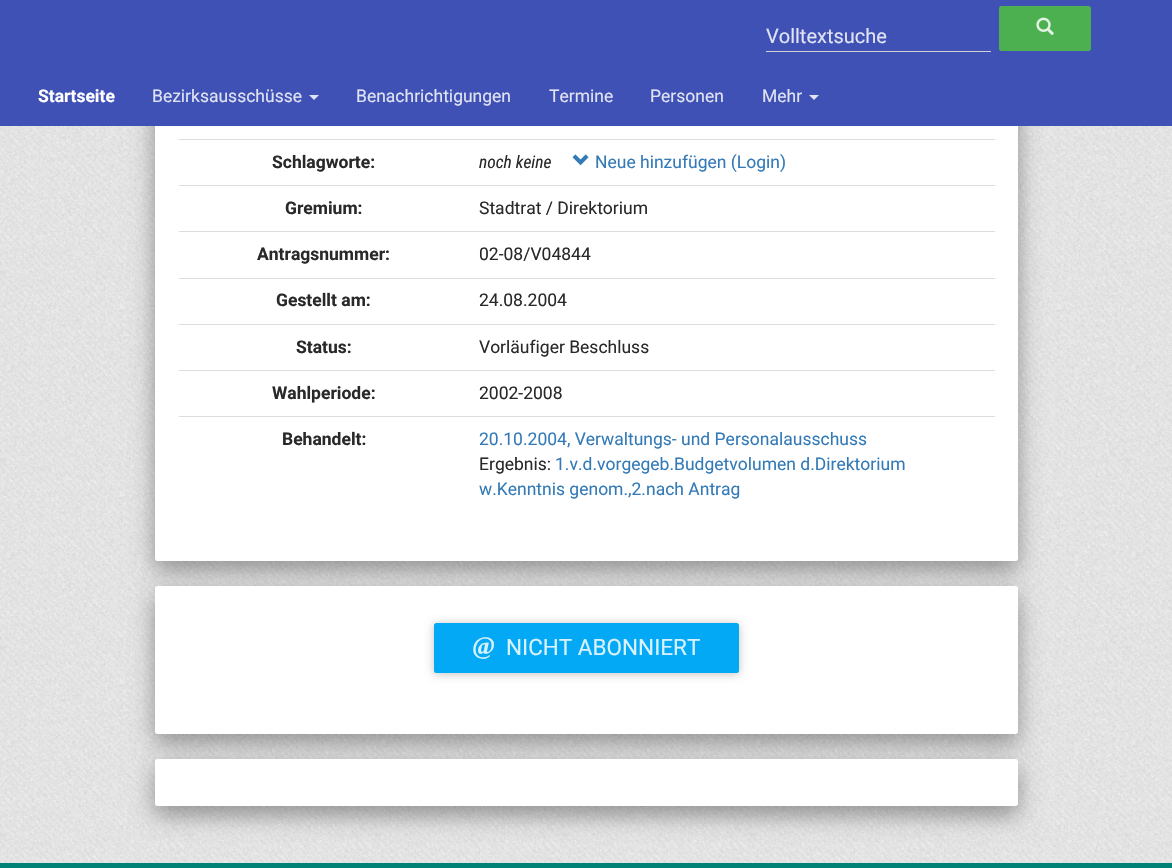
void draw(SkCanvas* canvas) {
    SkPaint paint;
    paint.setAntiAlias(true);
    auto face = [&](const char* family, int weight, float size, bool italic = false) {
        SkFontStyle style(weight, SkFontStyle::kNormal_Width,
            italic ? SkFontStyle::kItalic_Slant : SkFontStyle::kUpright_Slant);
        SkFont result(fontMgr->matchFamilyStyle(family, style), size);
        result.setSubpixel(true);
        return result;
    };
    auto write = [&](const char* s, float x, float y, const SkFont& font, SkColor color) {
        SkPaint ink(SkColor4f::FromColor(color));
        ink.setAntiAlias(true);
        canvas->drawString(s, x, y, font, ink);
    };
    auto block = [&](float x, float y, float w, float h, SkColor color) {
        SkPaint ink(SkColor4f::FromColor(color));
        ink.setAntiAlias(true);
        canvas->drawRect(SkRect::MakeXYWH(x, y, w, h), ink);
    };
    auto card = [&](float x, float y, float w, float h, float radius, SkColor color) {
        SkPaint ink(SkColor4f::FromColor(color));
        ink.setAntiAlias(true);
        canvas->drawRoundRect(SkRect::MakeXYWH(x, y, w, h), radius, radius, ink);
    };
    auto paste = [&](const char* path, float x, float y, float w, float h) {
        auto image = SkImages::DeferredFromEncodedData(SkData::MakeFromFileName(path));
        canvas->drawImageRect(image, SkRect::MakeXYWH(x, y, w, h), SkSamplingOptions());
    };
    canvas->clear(SK_ColorWHITE);
    paste("pic1.png", 0, 126, 1172, 737);
    paint.setColor(SkColorSetARGB(48, 0, 0, 0));
    paint.setMaskFilter(SkMaskFilter::MakeBlur(kNormal_SkBlurStyle, 12.5f));
    canvas->drawRoundRect(SkRect::MakeXYWH(155, -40, 863, 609), 2.5f, 2.5f, paint);
    paint.setMaskFilter(nullptr);
    paint.setColor(SkColorSetARGB(51, 0, 0, 0));
    paint.setMaskFilter(SkMaskFilter::MakeBlur(kNormal_SkBlurStyle, 10.5f));
    canvas->drawRoundRect(SkRect::MakeXYWH(155, -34, 863, 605), 2.5f, 2.5f, paint);
    paint.setMaskFilter(nullptr);
    card(155, -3, 863, 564, 2.5f, SK_ColorWHITE);
    block(0, 0, 1172, 126, SkColorSetRGB(63, 81, 181));
    block(766, 51, 225, 1, SkColorSetRGB(210, 210, 210));
    auto kFont1 = face("Roboto", 400, 20);
    write("Volltextsuche", 766, 43, kFont1, SkColorSetRGB(224, 227, 243));
    card(999, 6, 92, 45, 2.5f, SkColorSetRGB(76, 175, 80));
    paste("pic2.png", 1036, 17, 18, 18);
    auto kFont2 = face("Roboto", 700, 17.5f);
    write("Startseite", 38, 102, kFont2, SK_ColorWHITE);
    auto kFont3 = face("Roboto", 400, 17.5f);
    write("Bezirksausschüsse", 152, 102, kFont3, SkColorSetRGB(224, 227, 243));
    paint.setColor(SkColorSetRGB(224, 227, 243));
    canvas->drawPath(SkPathBuilder().moveTo(309, 95).lineTo(319, 95).lineTo(314, 100).close().detach(), paint);
    write("Benachrichtigungen", 356, 102, kFont3, SkColorSetRGB(224, 227, 243));
    write("Termine", 549, 102, kFont3, SkColorSetRGB(224, 227, 243));
    write("Personen", 650, 102, kFont3, SkColorSetRGB(224, 227, 243));
    write("Mehr", 762, 102, kFont3, SkColorSetRGB(224, 227, 243));
    canvas->drawPath(SkPathBuilder().moveTo(809, 95).lineTo(819, 95).lineTo(814, 100).close().detach(), paint);
    write("Schlagworte:", 272, 168, kFont2, SkColorSetRGB(41, 41, 41));
    block(179, 139, 816, 1, SkColorSetRGB(221, 221, 221));
    auto kFont4 = face("Roboto Condensed", 400, 17.5f, true);
    write("noch keine", 479, 168, kFont4, SkColorSetRGB(41, 41, 41));
    paste("pic3.png", 572, 154, 17, 12);
    write("Neue hinzufügen (Login)", 595, 168, kFont3, SkColorSetRGB(51, 122, 183));
    write("Gremium:", 285, 214, kFont2, SkColorSetRGB(41, 41, 41));
    block(179, 185, 816, 1, SkColorSetRGB(221, 221, 221));
    write("Stadtrat / Direktorium", 479, 214, kFont3, SkColorSetRGB(41, 41, 41));
    write("Antragsnummer:", 257, 260, kFont2, SkColorSetRGB(41, 41, 41));
    block(179, 231, 816, 1, SkColorSetRGB(221, 221, 221));
    write("02-08/V04844", 479, 260, kFont3, SkColorSetRGB(41, 41, 41));
    write("Gestellt am:", 276, 306, kFont2, SkColorSetRGB(41, 41, 41));
    block(179, 278, 816, 1, SkColorSetRGB(221, 221, 221));
    write("24.08.2004", 479, 306, kFont3, SkColorSetRGB(41, 41, 41));
    write("Status:", 296, 353, kFont2, SkColorSetRGB(41, 41, 41));
    block(179, 324, 816, 1, SkColorSetRGB(221, 221, 221));
    write("Vorläufiger Beschluss", 479, 353, kFont3, SkColorSetRGB(41, 41, 41));
    write("Wahlperiode:", 272, 399, kFont2, SkColorSetRGB(41, 41, 41));
    block(179, 370, 816, 1, SkColorSetRGB(221, 221, 221));
    write("2002-2008", 479, 399, kFont3, SkColorSetRGB(41, 41, 41));
    write("Behandelt:", 282, 445, kFont2, SkColorSetRGB(41, 41, 41));
    block(179, 416, 816, 1, SkColorSetRGB(221, 221, 221));
    write("20.10.2004, Verwaltungs- und Personalausschuss", 479, 445, kFont3, SkColorSetRGB(51, 122, 183));
    write("Ergebnis:", 479, 470, kFont3, SkColorSetRGB(41, 41, 41));
    write("1.v.d.vorgegeb.Budgetvolumen d.Direktorium", 555, 470, kFont3, SkColorSetRGB(51, 122, 183));
    write("w.Kenntnis genom.,2.nach Antrag", 479, 495, kFont3, SkColorSetRGB(51, 122, 183));
    paint.setColor(SkColorSetARGB(48, 0, 0, 0));
    paint.setMaskFilter(SkMaskFilter::MakeBlur(kNormal_SkBlurStyle, 12.5f));
    canvas->drawRoundRect(SkRect::MakeXYWH(155, 594, 863, 147), 2.5f, 2.5f, paint);
    paint.setMaskFilter(nullptr);
    paint.setColor(SkColorSetARGB(51, 0, 0, 0));
    paint.setMaskFilter(SkMaskFilter::MakeBlur(kNormal_SkBlurStyle, 10.5f));
    canvas->drawRoundRect(SkRect::MakeXYWH(155, 596, 863, 148), 2.5f, 2.5f, paint);
    paint.setMaskFilter(nullptr);
    card(155, 586, 863, 148, 2.5f, SK_ColorWHITE);
    paint.setColor(SkColorSetARGB(31, 0, 0, 0));
    paint.setMaskFilter(SkMaskFilter::MakeBlur(kNormal_SkBlurStyle, 4));
    canvas->drawRoundRect(SkRect::MakeXYWH(434, 624, 305, 50), 2.5f, 2.5f, paint);
    paint.setMaskFilter(nullptr);
    paint.setMaskFilter(SkMaskFilter::MakeBlur(kNormal_SkBlurStyle, 4));
    canvas->drawRoundRect(SkRect::MakeXYWH(434, 624, 305, 50), 2.5f, 2.5f, paint);
    paint.setMaskFilter(nullptr);
    card(434, 623, 305, 50, 2.5f, SkColorSetRGB(3, 169, 244));
    auto kFont5 = face("Liberation Serif", 700, 25);
    write("@", 472, 654, kFont5, SkColorSetRGB(215, 241, 253));
    auto kFont6 = face("Roboto", 400, 22.5f);
    write("NICHT ABONNIERT", 506, 655, kFont6, SkColorSetRGB(215, 241, 253));
    paint.setColor(SkColorSetARGB(48, 0, 0, 0));
    paint.setMaskFilter(SkMaskFilter::MakeBlur(kNormal_SkBlurStyle, 12.5f));
    canvas->drawRoundRect(SkRect::MakeXYWH(155, 766, 863, 48), 2.5f, 2.5f, paint);
    paint.setMaskFilter(nullptr);
    paint.setColor(SkColorSetARGB(51, 0, 0, 0));
    paint.setMaskFilter(SkMaskFilter::MakeBlur(kNormal_SkBlurStyle, 10.5f));
    canvas->drawRoundRect(SkRect::MakeXYWH(155, 769, 863, 47), 2.5f, 2.5f, paint);
    paint.setMaskFilter(nullptr);
    card(155, 759, 863, 47, 2.5f, SK_ColorWHITE);
    block(0, 863, 1172, 5, SkColorSetRGB(0, 130, 118));
}
